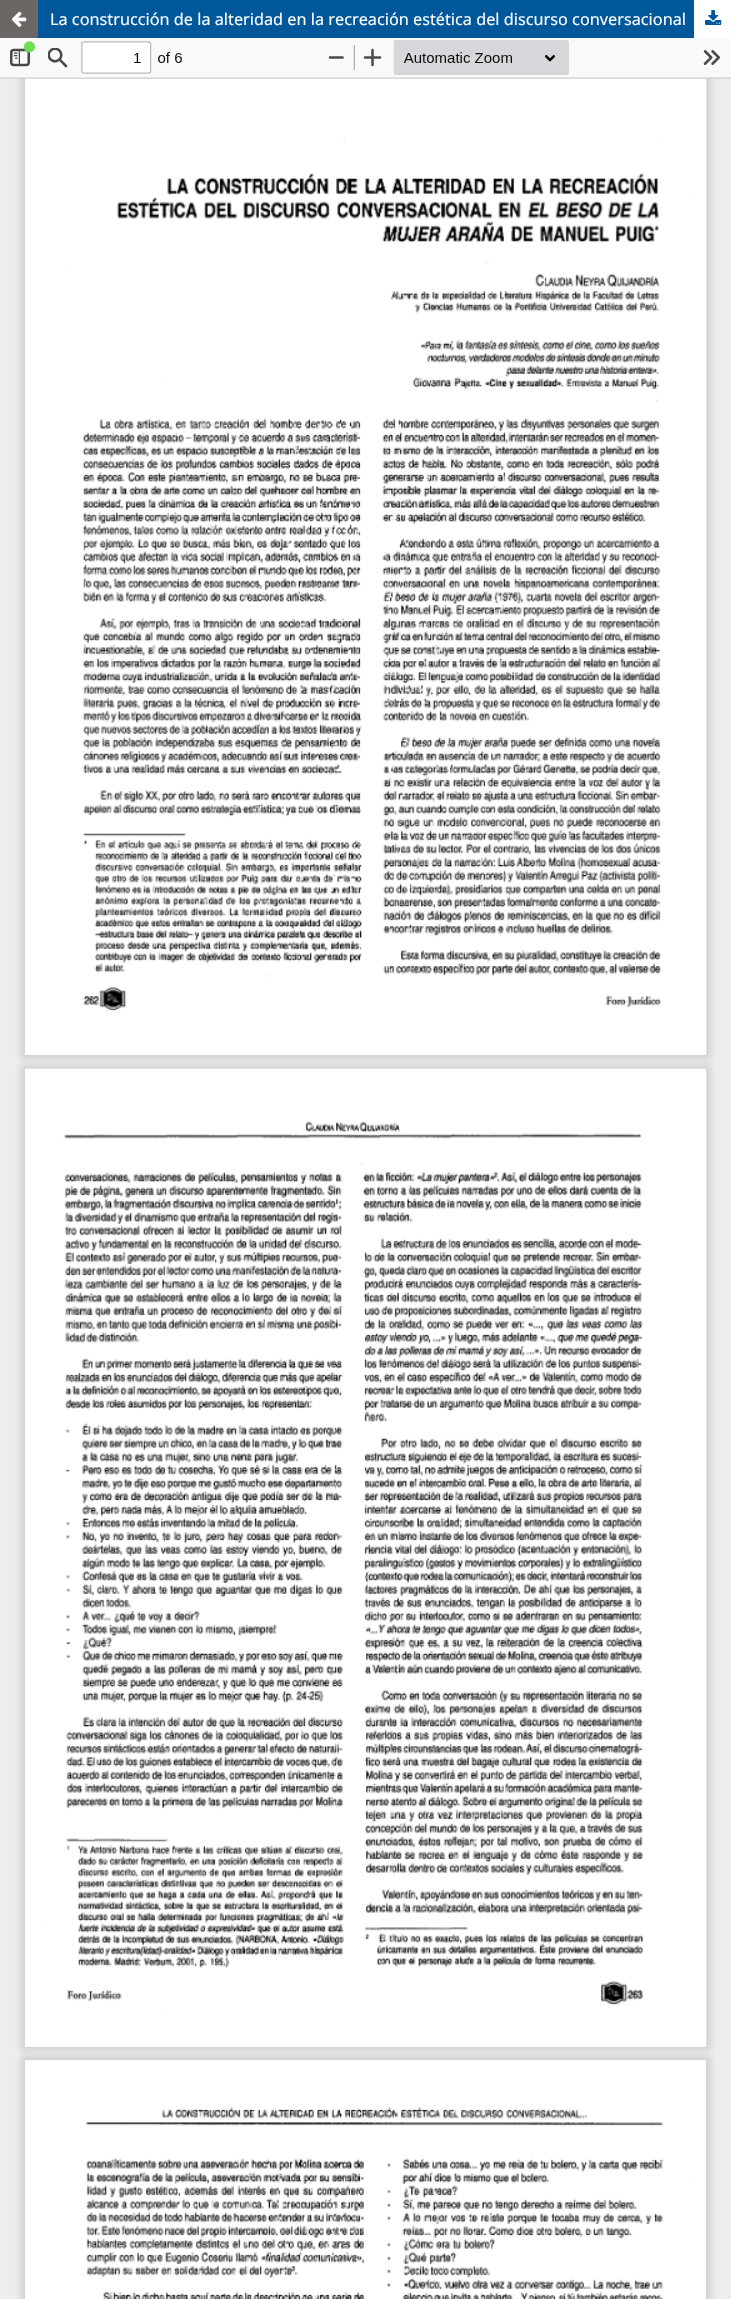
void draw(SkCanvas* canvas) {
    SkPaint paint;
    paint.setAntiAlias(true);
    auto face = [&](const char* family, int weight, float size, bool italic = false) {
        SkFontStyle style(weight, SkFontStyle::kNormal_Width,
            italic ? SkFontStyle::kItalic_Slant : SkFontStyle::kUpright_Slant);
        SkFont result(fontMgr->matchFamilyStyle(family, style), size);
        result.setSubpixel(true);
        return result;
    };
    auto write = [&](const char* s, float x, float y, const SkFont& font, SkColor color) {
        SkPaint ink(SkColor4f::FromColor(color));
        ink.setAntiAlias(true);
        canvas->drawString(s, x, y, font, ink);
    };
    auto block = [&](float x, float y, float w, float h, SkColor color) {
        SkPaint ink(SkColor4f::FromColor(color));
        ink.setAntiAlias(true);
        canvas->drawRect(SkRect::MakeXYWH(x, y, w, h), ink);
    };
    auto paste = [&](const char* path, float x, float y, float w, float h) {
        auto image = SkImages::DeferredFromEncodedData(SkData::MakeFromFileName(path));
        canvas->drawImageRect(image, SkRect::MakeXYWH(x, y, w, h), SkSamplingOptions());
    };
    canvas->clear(SK_ColorWHITE);
    block(38, 0, 656, 38, SkColorSetRGB(0, 88, 155));
    block(0, 0, 38, 38, SkColorSetRGB(108, 102, 100));
    paste("pic1.png", 11, 11, 16, 16);
    auto kFont1 = face("Noto Sans", 400, 16.25f);
    write("La construcción de la alteridad en la recreación estética del discurso conversacional", 50, 25, kFont1, SK_ColorWHITE);
    paste("pic2.png", 705, 10, 17, 15);
    paste("pic3.png", 0, 38, 731, 2261);
}
